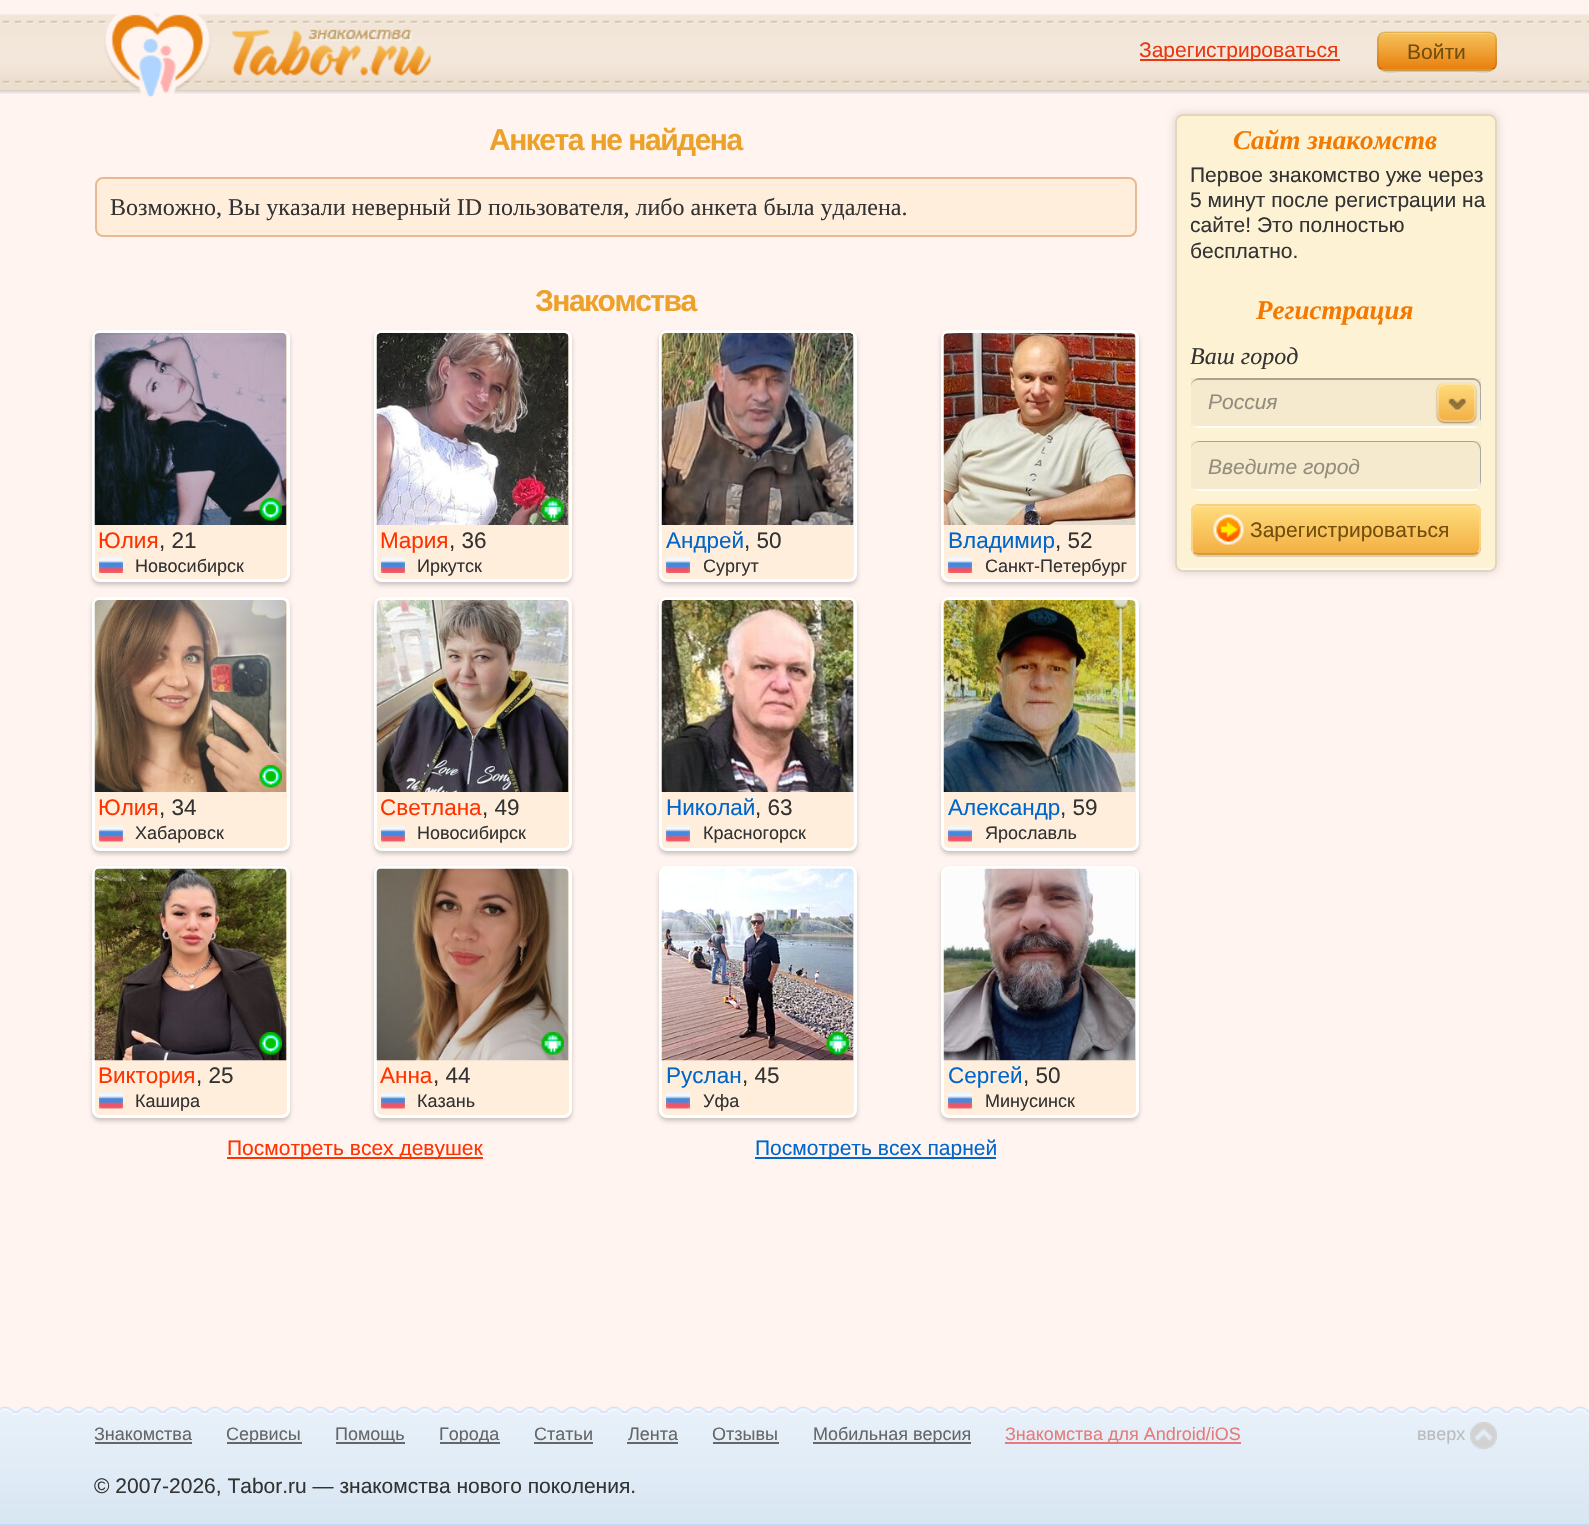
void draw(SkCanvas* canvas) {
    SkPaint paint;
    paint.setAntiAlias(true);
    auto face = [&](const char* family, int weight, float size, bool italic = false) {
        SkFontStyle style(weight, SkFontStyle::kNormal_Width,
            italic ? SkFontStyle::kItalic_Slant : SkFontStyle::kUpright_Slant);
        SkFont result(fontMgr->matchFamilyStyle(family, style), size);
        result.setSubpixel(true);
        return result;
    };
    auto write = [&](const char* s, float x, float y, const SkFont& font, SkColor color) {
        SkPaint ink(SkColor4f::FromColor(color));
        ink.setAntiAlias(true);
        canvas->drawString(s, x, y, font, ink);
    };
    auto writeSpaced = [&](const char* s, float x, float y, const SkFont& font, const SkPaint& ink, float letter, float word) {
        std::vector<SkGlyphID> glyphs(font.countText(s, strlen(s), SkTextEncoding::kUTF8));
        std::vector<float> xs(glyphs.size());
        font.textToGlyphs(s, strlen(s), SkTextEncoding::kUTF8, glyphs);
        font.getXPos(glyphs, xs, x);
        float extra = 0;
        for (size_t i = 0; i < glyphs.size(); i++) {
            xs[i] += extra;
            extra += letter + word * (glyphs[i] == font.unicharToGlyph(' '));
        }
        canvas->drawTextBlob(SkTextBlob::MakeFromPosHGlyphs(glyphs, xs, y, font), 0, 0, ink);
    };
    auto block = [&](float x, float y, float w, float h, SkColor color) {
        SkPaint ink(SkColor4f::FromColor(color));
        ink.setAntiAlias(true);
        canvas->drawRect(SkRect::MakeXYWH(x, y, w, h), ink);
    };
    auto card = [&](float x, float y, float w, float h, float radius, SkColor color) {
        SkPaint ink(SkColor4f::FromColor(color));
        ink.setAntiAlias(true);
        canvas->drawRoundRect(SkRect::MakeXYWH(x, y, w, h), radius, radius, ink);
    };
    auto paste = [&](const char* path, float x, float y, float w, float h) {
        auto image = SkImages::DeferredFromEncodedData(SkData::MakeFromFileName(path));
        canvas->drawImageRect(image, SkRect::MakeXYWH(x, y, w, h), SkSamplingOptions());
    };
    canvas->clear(SkColorSetRGB(255, 244, 240));
    paste("pic1.png", 0, 13, 1589, 81);
    paste("pic2.png", 104, 13, 327, 85);
    block(1140, 59, 200, 2, SkColorSetRGB(232, 56, 15));
    auto kFont1 = face("Liberation Sans", 400, 21);
    write("Зарегистрироваться", 1139, 57, kFont1, SkColorSetRGB(232, 56, 15));
    paint.setColor(SkColorSetARGB(38, 0, 0, 0));
    canvas->drawPath(SkPathBuilder().moveTo(1377, 63).cubicTo(1377, 76, 1394, 72, 1402, 72).lineTo(1472, 72).cubicTo(1480, 72, 1497, 76, 1497, 63).cubicTo(1497, 67, 1494, 70, 1490, 70).lineTo(1384, 70).cubicTo(1380, 70, 1377, 67, 1377, 63).close().detach(), paint);
    card(1377, 32, 120, 39, 8, SkColorSetRGB(246, 194, 91));
    canvas->save();
    canvas->clipPath(SkPathBuilder().moveTo(1385, 32).lineTo(1489, 32).cubicTo(1493.5f, 32, 1497, 35.5f, 1497, 40).lineTo(1497, 63).cubicTo(1497, 67.5f, 1493.5f, 71, 1489, 71).lineTo(1385, 71).cubicTo(1380.5f, 71, 1377, 67.5f, 1377, 63).lineTo(1377, 40).cubicTo(1377, 35.5f, 1380.5f, 32, 1385, 32).close().detach(), true);
    {
        const SkColor colors[] = {SkColorSetRGB(246, 194, 91), SkColorSetRGB(232, 128, 15)};
        const float stops[] = {0, 1};
        const SkPoint ends[] = {{1437, 33}, {1437, 69}};
        paint.setShader(SkGradientShader::MakeLinear(ends, colors, stops, 2, SkTileMode::kClamp));
        paint.setAlpha(255);
    }
    canvas->drawRect(SkRect::MakeXYWH(1377, 33, 120, 36), paint);
    canvas->restore();
    paint.setShader(nullptr);
    paint.setColor(SkColorSetARGB(64, 255, 255, 255));
    canvas->drawPath(SkPathBuilder().moveTo(1384, 34).lineTo(1490, 34).cubicTo(1493, 34, 1496, 37, 1496, 40).lineTo(1496, 39).cubicTo(1496, 36, 1493, 33, 1490, 33).lineTo(1385, 33).cubicTo(1383, 33, 1381, 34, 1380, 36).cubicTo(1381, 35, 1383, 34, 1384, 34).close().detach(), paint);
    paint.setStyle(SkPaint::kStroke_Style);
    paint.setStrokeWidth(1.5f);
    paint.setColor(SkColorSetARGB(64, 0, 0, 0));
    canvas->drawPath(SkPathBuilder().moveTo(1494.5f, 68).cubicTo(1493, 69, 1491.5f, 70, 1489.5f, 70).lineTo(1384.5f, 70).cubicTo(1382.5f, 70, 1381, 69, 1379.5f, 68).detach(), paint);
    paint.setColor(SkColorSetARGB(26, 0, 0, 0));
    canvas->drawPath(SkPathBuilder().moveTo(1379.5f, 68).cubicTo(1376.5f, 64.5f, 1378, 59, 1378, 55).cubicTo(1378, 29.5f, 1375, 32, 1402, 32).lineTo(1472, 32).cubicTo(1499, 32, 1496, 29.5f, 1496, 55).cubicTo(1496, 59, 1497.5f, 64.5f, 1494.5f, 68).detach(), paint);
    write("Войти", 1407, 59, kFont1, SkColorSetRGB(115, 77, 12));
    auto kFont2 = face("Liberation Sans", 700, 30);
    paint.setStyle(SkPaint::kFill_Style);
    paint.setColor(SkColorSetRGB(236, 162, 42));
    writeSpaced("Анкета не найдена", 489, 150, kFont2, paint, -1.5f, 0);
    paint.setColor(SkColorSetRGB(255, 238, 219));
    canvas->drawRoundRect(SkRect::MakeXYWH(96, 178, 1040, 58), 7, 7, paint);
    paint.setStyle(SkPaint::kStroke_Style);
    paint.setStrokeWidth(2);
    paint.setColor(SkColorSetRGB(232, 185, 146));
    canvas->drawRoundRect(SkRect::MakeXYWH(96, 178, 1040, 58), 7, 7, paint);
    auto kFont3 = face("Liberation Serif", 400, 24);
    write("Возможно, Вы указали неверный ID пользователя, либо анкета была удалена.", 110, 215, kFont3, SkColorSetRGB(51, 51, 51));
    paint.setStyle(SkPaint::kFill_Style);
    paint.setColor(SkColorSetRGB(236, 162, 42));
    writeSpaced("Знакомства", 535, 311, kFont2, paint, -1.5f, 0);
    paint.setColor(SkColorSetARGB(51, 0, 0, 0));
    paint.setMaskFilter(SkMaskFilter::MakeBlur(kNormal_SkBlurStyle, 2));
    canvas->drawRoundRect(SkRect::MakeXYWH(92, 333, 198, 252), 8, 8, paint);
    paint.setMaskFilter(nullptr);
    paint.setColor(SkColorSetRGB(255, 238, 219));
    canvas->drawRoundRect(SkRect::MakeXYWH(93.5f, 331.5f, 195, 249), 6.5f, 6.5f, paint);
    paint.setStyle(SkPaint::kStroke_Style);
    paint.setStrokeWidth(3);
    paint.setColor(SK_ColorWHITE);
    canvas->drawRoundRect(SkRect::MakeXYWH(93.5f, 331.5f, 195, 249), 6.5f, 6.5f, paint);
    paste("pic3.png", 94, 333, 193, 192);
    paste("pic4.png", 259, 498, 23, 23);
    auto kFont4 = face("Liberation Sans", 400, 22.5f);
    write("Юлия", 98, 548, kFont4, SkColorSetRGB(255, 51, 0));
    write(", 21", 159, 548, kFont4, SkColorSetRGB(51, 51, 51));
    paste("pic5.png", 99, 556, 24, 17);
    auto kFont5 = face("Liberation Sans", 400, 18);
    write("Новосибирск", 135, 572, kFont5, SkColorSetRGB(51, 51, 51));
    paint.setStyle(SkPaint::kFill_Style);
    paint.setColor(SkColorSetARGB(51, 0, 0, 0));
    paint.setMaskFilter(SkMaskFilter::MakeBlur(kNormal_SkBlurStyle, 2));
    canvas->drawRoundRect(SkRect::MakeXYWH(374, 333, 198, 252), 8, 8, paint);
    paint.setMaskFilter(nullptr);
    paint.setColor(SkColorSetRGB(255, 238, 219));
    canvas->drawRoundRect(SkRect::MakeXYWH(375.5f, 331.5f, 195, 249), 6.5f, 6.5f, paint);
    paint.setStyle(SkPaint::kStroke_Style);
    paint.setColor(SK_ColorWHITE);
    canvas->drawRoundRect(SkRect::MakeXYWH(375.5f, 331.5f, 195, 249), 6.5f, 6.5f, paint);
    paste("pic6.png", 376, 333, 193, 192);
    paste("pic7.png", 541, 498, 23, 23);
    write("Мария", 380, 548, kFont4, SkColorSetRGB(255, 51, 0));
    write(", 36", 449, 548, kFont4, SkColorSetRGB(51, 51, 51));
    paste("pic8.png", 381, 556, 24, 17);
    write("Иркутск", 417, 572, kFont5, SkColorSetRGB(51, 51, 51));
    paint.setStyle(SkPaint::kFill_Style);
    paint.setColor(SkColorSetARGB(51, 0, 0, 0));
    paint.setMaskFilter(SkMaskFilter::MakeBlur(kNormal_SkBlurStyle, 2));
    canvas->drawRoundRect(SkRect::MakeXYWH(92, 600, 198, 254), 8, 8, paint);
    paint.setMaskFilter(nullptr);
    paint.setColor(SkColorSetRGB(255, 238, 219));
    canvas->drawRoundRect(SkRect::MakeXYWH(93.5f, 598.5f, 195, 251), 6.5f, 6.5f, paint);
    paint.setStyle(SkPaint::kStroke_Style);
    paint.setColor(SK_ColorWHITE);
    canvas->drawRoundRect(SkRect::MakeXYWH(93.5f, 598.5f, 195, 251), 6.5f, 6.5f, paint);
    paste("pic9.png", 94, 600, 193, 192);
    paste("pic10.png", 259, 765, 23, 23);
    write("Юлия", 98, 815, kFont4, SkColorSetRGB(255, 51, 0));
    write(", 34", 159, 815, kFont4, SkColorSetRGB(51, 51, 51));
    paste("pic11.png", 99, 825, 24, 17);
    write("Хабаровск", 135, 839, kFont5, SkColorSetRGB(51, 51, 51));
    paint.setStyle(SkPaint::kFill_Style);
    paint.setColor(SkColorSetARGB(51, 0, 0, 0));
    paint.setMaskFilter(SkMaskFilter::MakeBlur(kNormal_SkBlurStyle, 2));
    canvas->drawRoundRect(SkRect::MakeXYWH(374, 600, 198, 254), 8, 8, paint);
    paint.setMaskFilter(nullptr);
    paint.setColor(SkColorSetRGB(255, 238, 219));
    canvas->drawRoundRect(SkRect::MakeXYWH(375.5f, 598.5f, 195, 251), 6.5f, 6.5f, paint);
    paint.setStyle(SkPaint::kStroke_Style);
    paint.setColor(SK_ColorWHITE);
    canvas->drawRoundRect(SkRect::MakeXYWH(375.5f, 598.5f, 195, 251), 6.5f, 6.5f, paint);
    paste("pic12.png", 376, 600, 193, 192);
    write("Светлана", 380, 815, kFont4, SkColorSetRGB(255, 51, 0));
    write(", 49", 482, 815, kFont4, SkColorSetRGB(51, 51, 51));
    paste("pic13.png", 381, 825, 24, 17);
    write("Новосибирск", 417, 839, kFont5, SkColorSetRGB(51, 51, 51));
    paint.setStyle(SkPaint::kFill_Style);
    paint.setColor(SkColorSetARGB(51, 0, 0, 0));
    paint.setMaskFilter(SkMaskFilter::MakeBlur(kNormal_SkBlurStyle, 2));
    canvas->drawRoundRect(SkRect::MakeXYWH(92, 869, 198, 252), 8, 8, paint);
    paint.setMaskFilter(nullptr);
    paint.setColor(SkColorSetRGB(255, 238, 219));
    canvas->drawRoundRect(SkRect::MakeXYWH(93.5f, 867.5f, 195, 249), 6.5f, 6.5f, paint);
    paint.setStyle(SkPaint::kStroke_Style);
    paint.setColor(SK_ColorWHITE);
    canvas->drawRoundRect(SkRect::MakeXYWH(93.5f, 867.5f, 195, 249), 6.5f, 6.5f, paint);
    paste("pic14.png", 94, 868, 193, 193);
    paste("pic15.png", 259, 1032, 23, 23);
    write("Виктория", 98, 1083, kFont4, SkColorSetRGB(255, 51, 0));
    write(", 25", 196, 1083, kFont4, SkColorSetRGB(51, 51, 51));
    paste("pic11.png", 99, 1092, 24, 17);
    write("Кашира", 135, 1107, kFont5, SkColorSetRGB(51, 51, 51));
    paint.setStyle(SkPaint::kFill_Style);
    paint.setColor(SkColorSetARGB(51, 0, 0, 0));
    paint.setMaskFilter(SkMaskFilter::MakeBlur(kNormal_SkBlurStyle, 2));
    canvas->drawRoundRect(SkRect::MakeXYWH(374, 869, 198, 252), 8, 8, paint);
    paint.setMaskFilter(nullptr);
    paint.setColor(SkColorSetRGB(255, 238, 219));
    canvas->drawRoundRect(SkRect::MakeXYWH(375.5f, 867.5f, 195, 249), 6.5f, 6.5f, paint);
    paint.setStyle(SkPaint::kStroke_Style);
    paint.setColor(SK_ColorWHITE);
    canvas->drawRoundRect(SkRect::MakeXYWH(375.5f, 867.5f, 195, 249), 6.5f, 6.5f, paint);
    paste("pic16.png", 376, 868, 193, 193);
    paste("pic17.png", 541, 1032, 23, 23);
    write("Анна", 380, 1083, kFont4, SkColorSetRGB(255, 51, 0));
    write(", 44", 433, 1083, kFont4, SkColorSetRGB(51, 51, 51));
    paste("pic13.png", 381, 1092, 24, 17);
    write("Казань", 417, 1107, kFont5, SkColorSetRGB(51, 51, 51));
    block(227, 1157, 256, 2, SkColorSetRGB(255, 51, 0));
    write("Посмотреть всех девушек", 227, 1155, kFont1, SkColorSetRGB(255, 51, 0));
    paint.setStyle(SkPaint::kFill_Style);
    paint.setColor(SkColorSetARGB(51, 0, 0, 0));
    paint.setMaskFilter(SkMaskFilter::MakeBlur(kNormal_SkBlurStyle, 2));
    canvas->drawRoundRect(SkRect::MakeXYWH(659, 333, 198, 252), 8, 8, paint);
    paint.setMaskFilter(nullptr);
    paint.setColor(SkColorSetRGB(255, 238, 219));
    canvas->drawRoundRect(SkRect::MakeXYWH(660.5f, 331.5f, 195, 249), 6.5f, 6.5f, paint);
    paint.setStyle(SkPaint::kStroke_Style);
    paint.setColor(SK_ColorWHITE);
    canvas->drawRoundRect(SkRect::MakeXYWH(660.5f, 331.5f, 195, 249), 6.5f, 6.5f, paint);
    paste("pic18.png", 661, 333, 193, 192);
    write("Андрей", 666, 548, kFont4, SkColorSetRGB(0, 102, 204));
    write(", 50", 744, 548, kFont4, SkColorSetRGB(51, 51, 51));
    paste("pic5.png", 666, 556, 24, 17);
    write("Сургут", 703, 572, kFont5, SkColorSetRGB(51, 51, 51));
    paint.setStyle(SkPaint::kFill_Style);
    paint.setColor(SkColorSetARGB(51, 0, 0, 0));
    paint.setMaskFilter(SkMaskFilter::MakeBlur(kNormal_SkBlurStyle, 2));
    canvas->drawRoundRect(SkRect::MakeXYWH(941, 333, 198, 252), 8, 8, paint);
    paint.setMaskFilter(nullptr);
    paint.setColor(SkColorSetRGB(255, 238, 219));
    canvas->drawRoundRect(SkRect::MakeXYWH(942.5f, 331.5f, 195, 249), 6.5f, 6.5f, paint);
    paint.setStyle(SkPaint::kStroke_Style);
    paint.setColor(SK_ColorWHITE);
    canvas->drawRoundRect(SkRect::MakeXYWH(942.5f, 331.5f, 195, 249), 6.5f, 6.5f, paint);
    paste("pic19.png", 943, 333, 193, 192);
    write("Владимир", 948, 548, kFont4, SkColorSetRGB(0, 102, 204));
    write(", 52", 1055, 548, kFont4, SkColorSetRGB(51, 51, 51));
    paste("pic5.png", 948, 556, 24, 17);
    write("Санкт-Петербург", 985, 572, kFont5, SkColorSetRGB(51, 51, 51));
    paint.setStyle(SkPaint::kFill_Style);
    paint.setColor(SkColorSetARGB(51, 0, 0, 0));
    paint.setMaskFilter(SkMaskFilter::MakeBlur(kNormal_SkBlurStyle, 2));
    canvas->drawRoundRect(SkRect::MakeXYWH(659, 600, 198, 254), 8, 8, paint);
    paint.setMaskFilter(nullptr);
    paint.setColor(SkColorSetRGB(255, 238, 219));
    canvas->drawRoundRect(SkRect::MakeXYWH(660.5f, 598.5f, 195, 251), 6.5f, 6.5f, paint);
    paint.setStyle(SkPaint::kStroke_Style);
    paint.setColor(SK_ColorWHITE);
    canvas->drawRoundRect(SkRect::MakeXYWH(660.5f, 598.5f, 195, 251), 6.5f, 6.5f, paint);
    paste("pic20.png", 661, 600, 193, 192);
    write("Николай", 666, 815, kFont4, SkColorSetRGB(0, 102, 204));
    write(", 63", 755, 815, kFont4, SkColorSetRGB(51, 51, 51));
    paste("pic11.png", 666, 825, 24, 17);
    write("Красногорск", 703, 839, kFont5, SkColorSetRGB(51, 51, 51));
    paint.setStyle(SkPaint::kFill_Style);
    paint.setColor(SkColorSetARGB(51, 0, 0, 0));
    paint.setMaskFilter(SkMaskFilter::MakeBlur(kNormal_SkBlurStyle, 2));
    canvas->drawRoundRect(SkRect::MakeXYWH(941, 600, 198, 254), 8, 8, paint);
    paint.setMaskFilter(nullptr);
    paint.setColor(SkColorSetRGB(255, 238, 219));
    canvas->drawRoundRect(SkRect::MakeXYWH(942.5f, 598.5f, 195, 251), 6.5f, 6.5f, paint);
    paint.setStyle(SkPaint::kStroke_Style);
    paint.setColor(SK_ColorWHITE);
    canvas->drawRoundRect(SkRect::MakeXYWH(942.5f, 598.5f, 195, 251), 6.5f, 6.5f, paint);
    paste("pic21.png", 943, 600, 193, 192);
    write("Александр", 948, 815, kFont4, SkColorSetRGB(0, 102, 204));
    write(", 59", 1060, 815, kFont4, SkColorSetRGB(51, 51, 51));
    paste("pic11.png", 948, 825, 24, 17);
    write("Ярославль", 985, 839, kFont5, SkColorSetRGB(51, 51, 51));
    paint.setStyle(SkPaint::kFill_Style);
    paint.setColor(SkColorSetARGB(51, 0, 0, 0));
    paint.setMaskFilter(SkMaskFilter::MakeBlur(kNormal_SkBlurStyle, 2));
    canvas->drawRoundRect(SkRect::MakeXYWH(659, 869, 198, 252), 8, 8, paint);
    paint.setMaskFilter(nullptr);
    paint.setColor(SkColorSetRGB(255, 238, 219));
    canvas->drawRoundRect(SkRect::MakeXYWH(660.5f, 867.5f, 195, 249), 6.5f, 6.5f, paint);
    paint.setStyle(SkPaint::kStroke_Style);
    paint.setColor(SK_ColorWHITE);
    canvas->drawRoundRect(SkRect::MakeXYWH(660.5f, 867.5f, 195, 249), 6.5f, 6.5f, paint);
    paste("pic22.png", 661, 868, 193, 193);
    paste("pic23.png", 826, 1032, 23, 23);
    write("Руслан", 666, 1083, kFont4, SkColorSetRGB(0, 102, 204));
    write(", 45", 742, 1083, kFont4, SkColorSetRGB(51, 51, 51));
    paste("pic11.png", 666, 1092, 24, 17);
    write("Уфа", 703, 1107, kFont5, SkColorSetRGB(51, 51, 51));
    paint.setStyle(SkPaint::kFill_Style);
    paint.setColor(SkColorSetARGB(51, 0, 0, 0));
    paint.setMaskFilter(SkMaskFilter::MakeBlur(kNormal_SkBlurStyle, 2));
    canvas->drawRoundRect(SkRect::MakeXYWH(941, 869, 198, 252), 8, 8, paint);
    paint.setMaskFilter(nullptr);
    paint.setColor(SkColorSetRGB(255, 238, 219));
    canvas->drawRoundRect(SkRect::MakeXYWH(942.5f, 867.5f, 195, 249), 6.5f, 6.5f, paint);
    paint.setStyle(SkPaint::kStroke_Style);
    paint.setColor(SK_ColorWHITE);
    canvas->drawRoundRect(SkRect::MakeXYWH(942.5f, 867.5f, 195, 249), 6.5f, 6.5f, paint);
    paste("pic24.png", 943, 868, 193, 193);
    write("Сергей", 948, 1083, kFont4, SkColorSetRGB(0, 102, 204));
    write(", 50", 1023, 1083, kFont4, SkColorSetRGB(51, 51, 51));
    paste("pic11.png", 948, 1092, 24, 17);
    write("Минусинск", 985, 1107, kFont5, SkColorSetRGB(51, 51, 51));
    block(755, 1157, 241, 2, SkColorSetRGB(0, 102, 204));
    write("Посмотреть всех парней", 755, 1155, kFont1, SkColorSetRGB(0, 102, 204));
    paint.setStyle(SkPaint::kFill_Style);
    paint.setColor(SkColorSetARGB(38, 0, 0, 0));
    paint.setMaskFilter(SkMaskFilter::MakeBlur(kNormal_SkBlurStyle, 4));
    canvas->drawRoundRect(SkRect::MakeXYWH(1175, 114, 322, 458), 8, 8, paint);
    paint.setMaskFilter(nullptr);
    card(1175, 114, 322, 458, 8, SkColorSetRGB(253, 242, 212));
    paint.setColor(SkColorSetRGB(254, 249, 234));
    canvas->drawPath(SkPathBuilder().moveTo(1176, 562).cubicTo(1176, 566, 1177, 570, 1182, 570).lineTo(1491, 570).cubicTo(1495, 569, 1496, 565, 1496, 562).cubicTo(1496, 566, 1493, 568, 1490, 568).lineTo(1182, 568).cubicTo(1179, 568, 1176, 566, 1176, 562).close().detach(), paint);
    paint.setStyle(SkPaint::kStroke_Style);
    paint.setStrokeWidth(2);
    paint.setColor(SkColorSetRGB(228, 213, 190));
    canvas->drawRoundRect(SkRect::MakeXYWH(1176, 115, 320, 456), 7, 7, paint);
    auto kFont6 = face("Liberation Serif", 700, 27, true);
    write("Сайт знакомств", 1233, 149, kFont6, SkColorSetRGB(244, 121, 0));
    write("Первое знакомство уже через", 1190, 182, kFont1, SkColorSetRGB(51, 51, 51));
    write("5 минут после регистрации на", 1190, 207, kFont1, SkColorSetRGB(51, 51, 51));
    write("сайте! Это полностью", 1190, 232, kFont1, SkColorSetRGB(51, 51, 51));
    write("бесплатно.", 1190, 258, kFont1, SkColorSetRGB(51, 51, 51));
    write("Регистрация", 1256, 319, kFont6, SkColorSetRGB(244, 121, 0));
    auto kFont7 = face("Liberation Serif", 400, 24, true);
    write("Ваш город", 1190, 364, kFont7, SkColorSetRGB(51, 51, 51));
    paint.setStyle(SkPaint::kFill_Style);
    paint.setColor(SkColorSetRGB(255, 252, 246));
    canvas->drawPath(SkPathBuilder().moveTo(1191, 418).lineTo(1191, 420).cubicTo(1191, 424, 1195, 428, 1199, 428).lineTo(1473, 428).cubicTo(1477, 428, 1481, 424, 1481, 420).lineTo(1481, 388).lineTo(1480, 385).lineTo(1480, 418).cubicTo(1480, 423, 1477, 426, 1473, 426).lineTo(1198, 426).cubicTo(1194, 426, 1191, 423, 1191, 418).close().detach(), paint);
    block(1191, 378, 290, 48, SkColorSetARGB(8, 0, 0, 0));
    paint.setColor(SkColorSetARGB(77, 0, 0, 0));
    canvas->drawPath(SkPathBuilder().moveTo(1198, 380).lineTo(1473, 380).cubicTo(1482, 380, 1480, 392, 1480, 398).lineTo(1480, 422).cubicTo(1480, 421, 1481, 420, 1481, 418).lineTo(1481, 386).cubicTo(1481, 382, 1477, 378, 1473, 378).lineTo(1199, 378).cubicTo(1195, 378, 1191, 382, 1191, 386).lineTo(1191, 387).cubicTo(1191, 383, 1194, 380, 1198, 380).close().detach(), paint);
    auto kFont8 = face("Liberation Sans", 400, 21, true);
    write("Россия", 1208, 409, kFont8, SkColorSetRGB(148, 141, 126));
    paint.setColor(SkColorSetARGB(191, 125, 97, 51));
    paint.setMaskFilter(SkMaskFilter::MakeBlur(kNormal_SkBlurStyle, 1));
    canvas->drawRoundRect(SkRect::MakeXYWH(1437, 384, 39, 39), 8, 8, paint);
    paint.setMaskFilter(nullptr);
    {
        const SkColor colors[] = {SkColorSetRGB(255, 220, 126), SkColorSetRGB(242, 175, 66)};
        const float stops[] = {0, 1};
        const SkPoint ends[] = {{1457, 383}, {1457, 422}};
        paint.setShader(SkGradientShader::MakeLinear(ends, colors, stops, 2, SkTileMode::kClamp));
        paint.setAlpha(255);
    }
    canvas->drawRoundRect(SkRect::MakeXYWH(1437, 383, 39, 39), 8, 8, paint);
    paint.setStyle(SkPaint::kStroke_Style);
    paint.setShader(nullptr);
    paint.setColor(SkColorSetARGB(64, 255, 255, 255));
    canvas->drawRoundRect(SkRect::MakeXYWH(1438, 384, 37, 37), 7, 7, paint);
    paste("pic25.png", 1448, 398, 18, 13);
    paint.setStyle(SkPaint::kFill_Style);
    paint.setColor(SkColorSetRGB(255, 252, 246));
    canvas->drawPath(SkPathBuilder().moveTo(1191, 482).lineTo(1191, 483).cubicTo(1191, 487, 1195, 491, 1199, 491).lineTo(1473, 491).cubicTo(1477, 491, 1481, 487, 1481, 483).lineTo(1481, 451).lineTo(1480, 448).lineTo(1480, 482).cubicTo(1480, 486, 1477, 489, 1473, 489).lineTo(1198, 489).cubicTo(1194, 489, 1191, 486, 1191, 482).close().detach(), paint);
    block(1191, 441, 290, 48, SkColorSetARGB(8, 0, 0, 0));
    paint.setColor(SkColorSetARGB(77, 0, 0, 0));
    canvas->drawPath(SkPathBuilder().moveTo(1198, 442).lineTo(1473, 442).cubicTo(1477, 442, 1480, 446, 1480, 450).lineTo(1480, 483).lineTo(1480, 486).cubicTo(1480, 484, 1481, 483, 1481, 481).lineTo(1481, 449).cubicTo(1481, 445, 1477, 441, 1473, 441).lineTo(1199, 441).cubicTo(1195, 441, 1191, 445, 1191, 449).lineTo(1191, 450).cubicTo(1191, 446, 1194, 442, 1198, 442).close().detach(), paint);
    write("Введите город", 1208, 474, kFont8, SkColorSetRGB(148, 141, 126));
    paint.setColor(SkColorSetRGB(215, 206, 180));
    canvas->drawPath(SkPathBuilder().moveTo(1191, 548).lineTo(1191, 549).cubicTo(1191, 553, 1195, 557, 1199, 557).lineTo(1473, 557).cubicTo(1477, 557, 1481, 553, 1481, 549).lineTo(1481, 514).lineTo(1480, 511).lineTo(1480, 548).cubicTo(1480, 552, 1477, 555, 1473, 555).lineTo(1198, 555).cubicTo(1194, 555, 1191, 552, 1191, 548).close().detach(), paint);
    card(1191, 504, 290, 51, 8, SkColorSetRGB(242, 175, 66));
    canvas->save();
    canvas->clipPath(SkPathBuilder().moveTo(1199, 504).lineTo(1473, 504).cubicTo(1477.5f, 504, 1481, 507.5f, 1481, 512).lineTo(1481, 547).cubicTo(1481, 551.5f, 1477.5f, 555, 1473, 555).lineTo(1199, 555).cubicTo(1194.5f, 555, 1191, 551.5f, 1191, 547).lineTo(1191, 512).cubicTo(1191, 507.5f, 1194.5f, 504, 1199, 504).close().detach(), true);
    {
        const SkColor colors[] = {SkColorSetRGB(255, 220, 126), SkColorSetRGB(242, 175, 66)};
        const float stops[] = {0, 1};
        const SkPoint ends[] = {{1336, 506}, {1336, 554}};
        paint.setShader(SkGradientShader::MakeLinear(ends, colors, stops, 2, SkTileMode::kClamp));
        paint.setAlpha(255);
    }
    canvas->drawRect(SkRect::MakeXYWH(1191, 506, 290, 48), paint);
    canvas->restore();
    paint.setShader(nullptr);
    paint.setColor(SkColorSetRGB(255, 229, 157));
    canvas->drawPath(SkPathBuilder().moveTo(1198, 507).lineTo(1473, 507).cubicTo(1476, 507, 1479, 510, 1479, 513).lineTo(1479, 512).cubicTo(1479, 509, 1476, 506, 1473, 506).lineTo(1199, 506).cubicTo(1197, 506, 1195, 507, 1194, 509).cubicTo(1195, 508, 1197, 507, 1198, 507).close().detach(), paint);
    paint.setStyle(SkPaint::kStroke_Style);
    paint.setStrokeWidth(1.5f);
    paint.setColor(SkColorSetARGB(38, 0, 0, 0));
    canvas->drawPath(SkPathBuilder().moveTo(1478, 552.5f).cubicTo(1476.5f, 553.5f, 1475, 554, 1473, 554).lineTo(1198.5f, 554).cubicTo(1196.5f, 554, 1195, 553.5f, 1193.5f, 552.5f).detach(), paint);
    paint.setColor(SkColorSetRGB(251, 217, 143));
    canvas->drawPath(SkPathBuilder().moveTo(1193.5f, 552.5f).cubicTo(1192.5f, 551, 1192, 549.5f, 1192, 547.5f).lineTo(1192, 511.5f).cubicTo(1192, 509.5f, 1192.5f, 508, 1193.5f, 506.5f).cubicTo(1195, 505.5f, 1196.5f, 505, 1198.5f, 505).lineTo(1473, 505).cubicTo(1475, 505, 1476.5f, 505.5f, 1478, 506.5f).cubicTo(1479, 508, 1480, 509.5f, 1480, 511.5f).lineTo(1480, 547.5f).cubicTo(1480, 549.5f, 1479, 551, 1478, 552.5f).detach(), paint);
    paste("pic26.png", 1213, 514, 31, 31);
    write("Зарегистрироваться", 1250, 537, kFont1, SkColorSetRGB(115, 77, 12));
    paint.setStyle(SkPaint::kFill_Style);
    {
        const SkColor colors[] = {SkColorSetRGB(232, 241, 250), SkColorSetRGB(216, 230, 242)};
        const float stops[] = {0, 1};
        const SkPoint ends[] = {{795, 1411}, {795, 1524}};
        paint.setShader(SkGradientShader::MakeLinear(ends, colors, stops, 2, SkTileMode::kClamp));
        paint.setAlpha(255);
    }
    canvas->drawRect(SkRect::MakeXYWH(0, 1414, 1589, 110), paint);
    block(0, 1524, 1589, 1, SkColorSetRGB(194, 220, 251));
    paste("pic27.png", 0, 1406, 1589, 9);
    write("Знакомства", 94, 1440, kFont5, SkColorSetRGB(102, 102, 102));
    block(95, 1442, 97, 2, SkColorSetRGB(102, 102, 102));
    block(227, 1442, 75, 2, SkColorSetRGB(102, 102, 102));
    write("Сервисы", 226, 1440, kFont5, SkColorSetRGB(102, 102, 102));
    block(336, 1442, 69, 2, SkColorSetRGB(102, 102, 102));
    write("Помощь", 335, 1440, kFont5, SkColorSetRGB(102, 102, 102));
    block(440, 1442, 60, 2, SkColorSetRGB(102, 102, 102));
    write("Города", 439, 1440, kFont5, SkColorSetRGB(102, 102, 102));
    write("Статьи", 534, 1440, kFont5, SkColorSetRGB(102, 102, 102));
    block(534, 1442, 59, 2, SkColorSetRGB(102, 102, 102));
    write("Лента", 628, 1440, kFont5, SkColorSetRGB(102, 102, 102));
    block(627, 1442, 51, 2, SkColorSetRGB(102, 102, 102));
    write("Отзывы", 712, 1440, kFont5, SkColorSetRGB(102, 102, 102));
    block(713, 1442, 66, 2, SkColorSetRGB(102, 102, 102));
    block(813, 1442, 158, 2, SkColorSetRGB(102, 102, 102));
    write("Мобильная версия", 813, 1440, kFont5, SkColorSetRGB(102, 102, 102));
    block(1005, 1442, 236, 2, SkColorSetRGB(229, 124, 123));
    write("Знакомства для Android/iOS", 1005, 1440, kFont5, SkColorSetRGB(229, 124, 123));
    write("вверх", 1417, 1440, kFont5, SkColorSetRGB(187, 187, 187));
    paste("pic28.png", 1470, 1422, 27, 27);
    write("© 2007-2026, Tabor.ru — знакомства нового поколения.", 94, 1493, kFont1, SkColorSetRGB(51, 51, 51));
}
